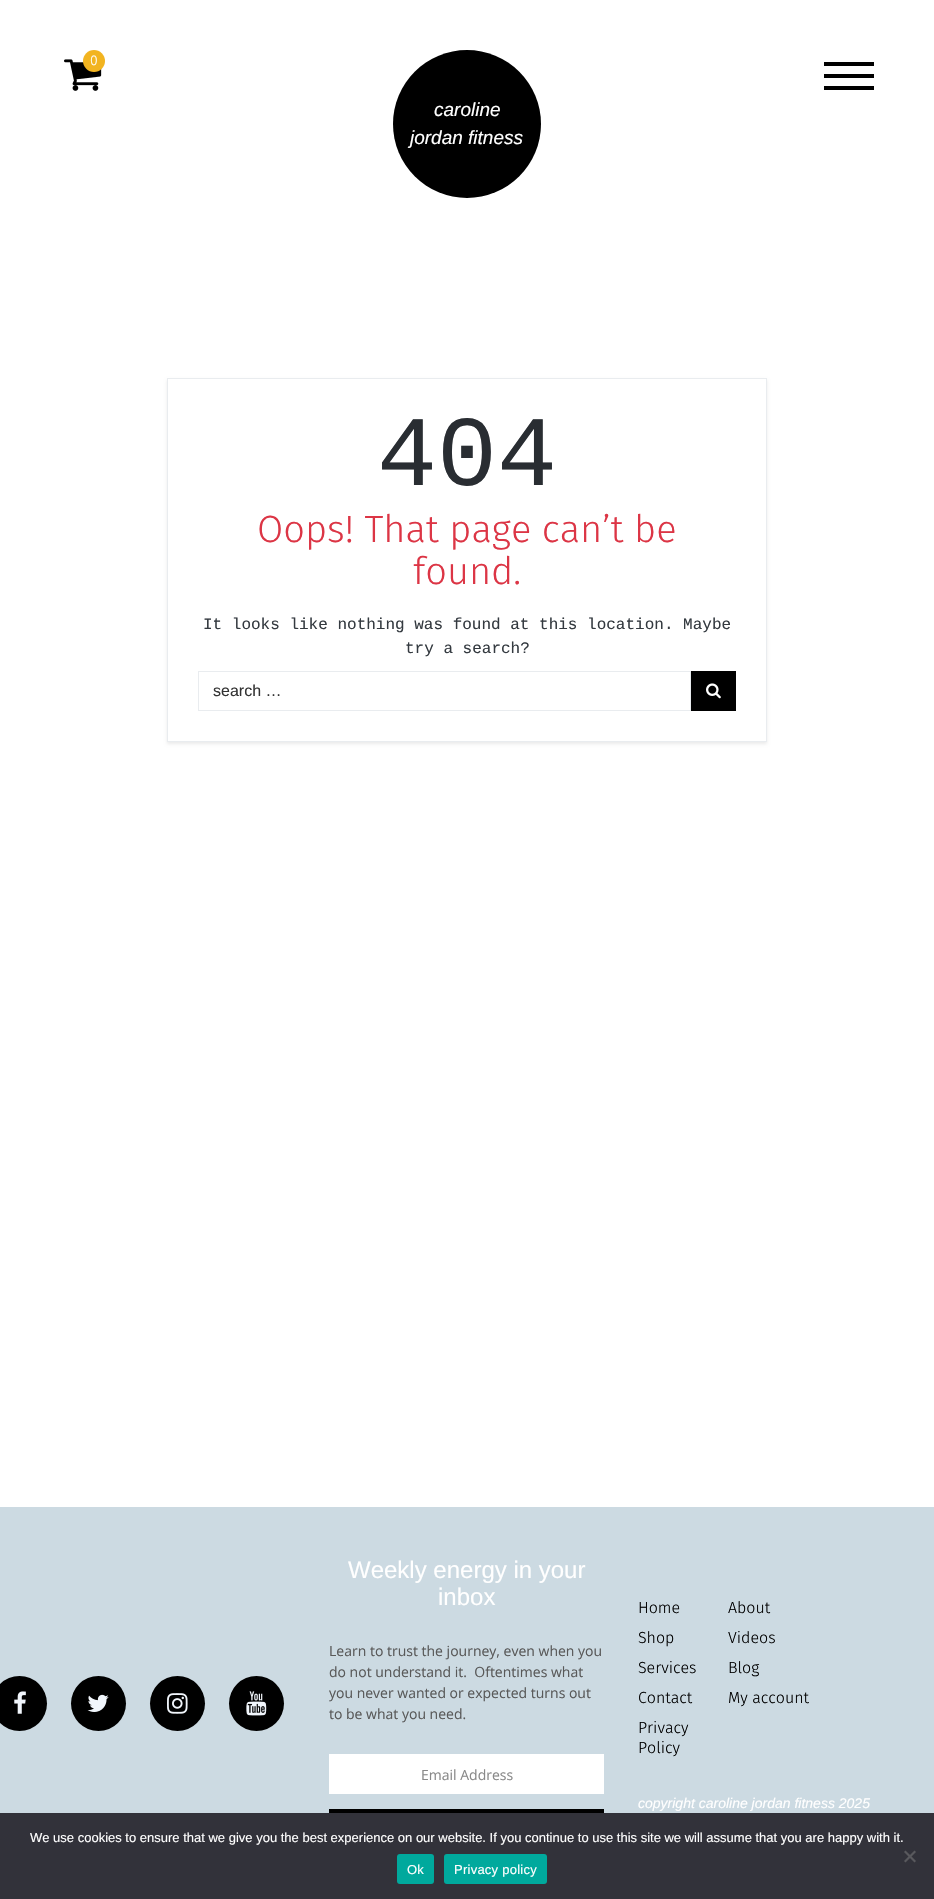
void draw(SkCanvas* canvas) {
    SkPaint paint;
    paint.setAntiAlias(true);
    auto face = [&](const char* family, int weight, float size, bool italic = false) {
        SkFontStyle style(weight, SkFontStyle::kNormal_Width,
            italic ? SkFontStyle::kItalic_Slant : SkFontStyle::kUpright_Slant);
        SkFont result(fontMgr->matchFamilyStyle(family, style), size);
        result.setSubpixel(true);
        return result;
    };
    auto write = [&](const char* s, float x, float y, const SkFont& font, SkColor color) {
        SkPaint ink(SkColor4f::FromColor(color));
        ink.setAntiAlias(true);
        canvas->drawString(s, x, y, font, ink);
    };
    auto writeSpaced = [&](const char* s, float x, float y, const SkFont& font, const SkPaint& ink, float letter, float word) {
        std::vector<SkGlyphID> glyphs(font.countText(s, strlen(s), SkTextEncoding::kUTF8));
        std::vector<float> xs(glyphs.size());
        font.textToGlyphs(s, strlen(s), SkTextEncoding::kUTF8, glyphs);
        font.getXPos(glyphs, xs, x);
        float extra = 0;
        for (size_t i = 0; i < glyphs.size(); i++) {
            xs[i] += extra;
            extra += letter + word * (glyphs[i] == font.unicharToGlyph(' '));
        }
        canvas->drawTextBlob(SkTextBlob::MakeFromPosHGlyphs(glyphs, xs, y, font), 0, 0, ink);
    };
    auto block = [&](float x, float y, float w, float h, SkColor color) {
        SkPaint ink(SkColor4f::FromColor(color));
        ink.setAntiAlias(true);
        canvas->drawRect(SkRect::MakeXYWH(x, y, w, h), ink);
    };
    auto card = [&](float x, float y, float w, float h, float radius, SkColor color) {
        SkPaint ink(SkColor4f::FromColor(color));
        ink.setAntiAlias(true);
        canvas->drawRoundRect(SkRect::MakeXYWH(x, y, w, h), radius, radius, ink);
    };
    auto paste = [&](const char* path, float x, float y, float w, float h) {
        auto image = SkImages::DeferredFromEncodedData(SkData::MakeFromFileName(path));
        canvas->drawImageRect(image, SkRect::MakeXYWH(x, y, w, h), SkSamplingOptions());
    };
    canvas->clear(SK_ColorWHITE);
    paste("pic1.png", 64, 59, 38, 32);
    paint.setColor(SkColorSetRGB(242, 180, 32));
    canvas->drawCircle(94, 61, 11, paint);
    auto kFont1 = face("Fira Sans", 300, 14);
    write("0", 90, 65, kFont1, SK_ColorWHITE);
    block(824, 62, 50, 4, SK_ColorBLACK);
    block(824, 74, 50, 4, SK_ColorBLACK);
    block(824, 86, 50, 4, SK_ColorBLACK);
    paint.setColor(SK_ColorBLACK);
    canvas->drawCircle(467, 124, 74, paint);
    auto kFont2 = face("Liberation Sans", 400, 19, true);
    write("caroline", 434, 116, kFont2, SK_ColorWHITE);
    write("jordan fitness", 410, 144, kFont2, SK_ColorWHITE);
    canvas->save();
    canvas->clipPath(SkPathBuilder(SkPathFillType::kEvenOdd).moveTo(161, 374).lineTo(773, 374).lineTo(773, 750).lineTo(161, 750).close().moveTo(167, 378).lineTo(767, 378).lineTo(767, 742).lineTo(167, 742).close().detach(), true);
    paint.setColor(SkColorSetARGB(20, 0, 0, 0));
    paint.setMaskFilter(SkMaskFilter::MakeBlur(kNormal_SkBlurStyle, 1.5f));
    canvas->drawRect(SkRect::MakeXYWH(167, 380, 600, 364), paint);
    paint.setMaskFilter(nullptr);
    canvas->restore();
    paint.setStyle(SkPaint::kStroke_Style);
    paint.setStrokeWidth(1);
    paint.setColor(SkColorSetRGB(233, 236, 239));
    canvas->drawRect(SkRect::MakeXYWH(167.5f, 378.5f, 599, 363), paint);
    auto kFont3 = face("Liberation Mono", 400, 100);
    write("404", 377, 485, kFont3, SkColorSetRGB(41, 45, 50));
    auto kFont4 = face("Fira Sans", 300, 38);
    write("Oops! That page can’t be", 257, 542, kFont4, SkColorSetRGB(220, 53, 69));
    write("found.", 413, 584, kFont4, SkColorSetRGB(220, 53, 69));
    auto kFont5 = face("Liberation Mono", 400, 16);
    write("It looks like nothing was found at this location. Maybe", 203, 629, kFont5, SkColorSetRGB(52, 58, 64));
    write("try a search?", 405, 653, kFont5, SkColorSetRGB(52, 58, 64));
    canvas->drawRect(SkRect::MakeXYWH(198.5f, 671.5f, 492, 39), paint);
    auto kFont6 = face("Liberation Sans", 400, 16);
    write("search …", 213, 696, kFont6, SkColorSetRGB(51, 51, 51));
    block(691, 672, 44, 38, SK_ColorBLACK);
    block(691, 671, 45, 1, SK_ColorBLACK);
    block(735, 671, 1, 40, SK_ColorBLACK);
    block(691, 710, 45, 1, SK_ColorBLACK);
    paste("pic2.png", 706, 683, 15, 16);
    block(0, 1507, 934, 306, SkColorSetRGB(204, 218, 226));
    paint.setStyle(SkPaint::kFill_Style);
    paint.setColor(SK_ColorBLACK);
    canvas->drawCircle(19.5f, 1703.5f, 27.5f, paint);
    paste("pic3.png", 14, 1691, 12, 23);
    canvas->drawCircle(98.5f, 1703.5f, 27.5f, paint);
    paste("pic4.png", 87, 1694, 22, 18);
    canvas->drawCircle(177.5f, 1703.5f, 27.5f, paint);
    paste("pic5.png", 167, 1693, 21, 21);
    canvas->drawCircle(256.5f, 1703.5f, 27.5f, paint);
    paste("pic6.png", 246, 1691, 21, 25);
    auto kFont7 = face("Liberation Sans", 400, 24);
    write("Weekly energy in your", 348, 1578, kFont7, SK_ColorWHITE);
    write("inbox", 438, 1605, kFont7, SK_ColorWHITE);
    auto kFont8 = face("Open Sans", 400, 14);
    write("Learn to trust the journey, even when you", 329, 1656, kFont8, SkColorSetRGB(89, 89, 89));
    write("do not understand it.  Oftentimes what", 329, 1677, kFont8, SkColorSetRGB(89, 89, 89));
    write("you never wanted or expected turns out", 329, 1698, kFont8, SkColorSetRGB(89, 89, 89));
    write("to be what you need.", 329, 1719, kFont8, SkColorSetRGB(89, 89, 89));
    block(329, 1754, 275, 40, SK_ColorWHITE);
    write("Email Address", 421, 1780, kFont8, SkColorSetRGB(137, 137, 137));
    block(329, 1809, 275, 4, SK_ColorBLACK);
    auto kFont9 = face("Fira Sans", 300, 16);
    write("Home", 638, 1613, kFont9, SK_ColorBLACK);
    write("About", 728, 1613, kFont9, SK_ColorBLACK);
    write("Shop", 638, 1643, kFont9, SK_ColorBLACK);
    write("Videos", 728, 1643, kFont9, SK_ColorBLACK);
    write("Services", 638, 1673, kFont9, SK_ColorBLACK);
    write("Blog", 728, 1673, kFont9, SK_ColorBLACK);
    write("Contact", 638, 1703, kFont9, SK_ColorBLACK);
    write("My account", 728, 1703, kFont9, SK_ColorBLACK);
    write("Privacy", 638, 1733, kFont9, SK_ColorBLACK);
    write("Policy", 638, 1753, kFont9, SK_ColorBLACK);
    auto kFont10 = face("Liberation Sans", 400, 14, true);
    write("copyright caroline jordan fitness 2025", 638, 1808, kFont10, SK_ColorWHITE);
    block(0, 1813, 934, 86, SkColorSetRGB(50, 50, 58));
    auto kFont11 = face("Liberation Sans", 400, 13);
    write("We use cookies to ensure that we give you the best experience on our website. If you continue to use this site we will assume that you are happy with it.", 30, 1842, kFont11, SK_ColorWHITE);
    paint.setColor(SkColorSetRGB(89, 89, 93));
    canvas->drawPath(SkPathBuilder().moveTo(914.5f, 1850.5f).lineTo(916, 1852).lineTo(905.5f, 1862.5f).lineTo(904, 1861).close().detach(), paint);
    canvas->drawPath(SkPathBuilder().moveTo(904, 1852).lineTo(905.5f, 1850.5f).lineTo(916, 1861).lineTo(914.5f, 1862.5f).close().detach(), paint);
    card(397, 1854, 37, 30, 3, SkColorSetRGB(0, 169, 157));
    paint.setColor(SK_ColorWHITE);
    writeSpaced("Ok", 407, 1874, kFont11, paint, 0.25f, 0);
    card(444, 1854, 103, 30, 3, SkColorSetRGB(0, 169, 157));
    writeSpaced("Privacy policy", 454, 1874, kFont11, paint, 0.25f, 0);
}
